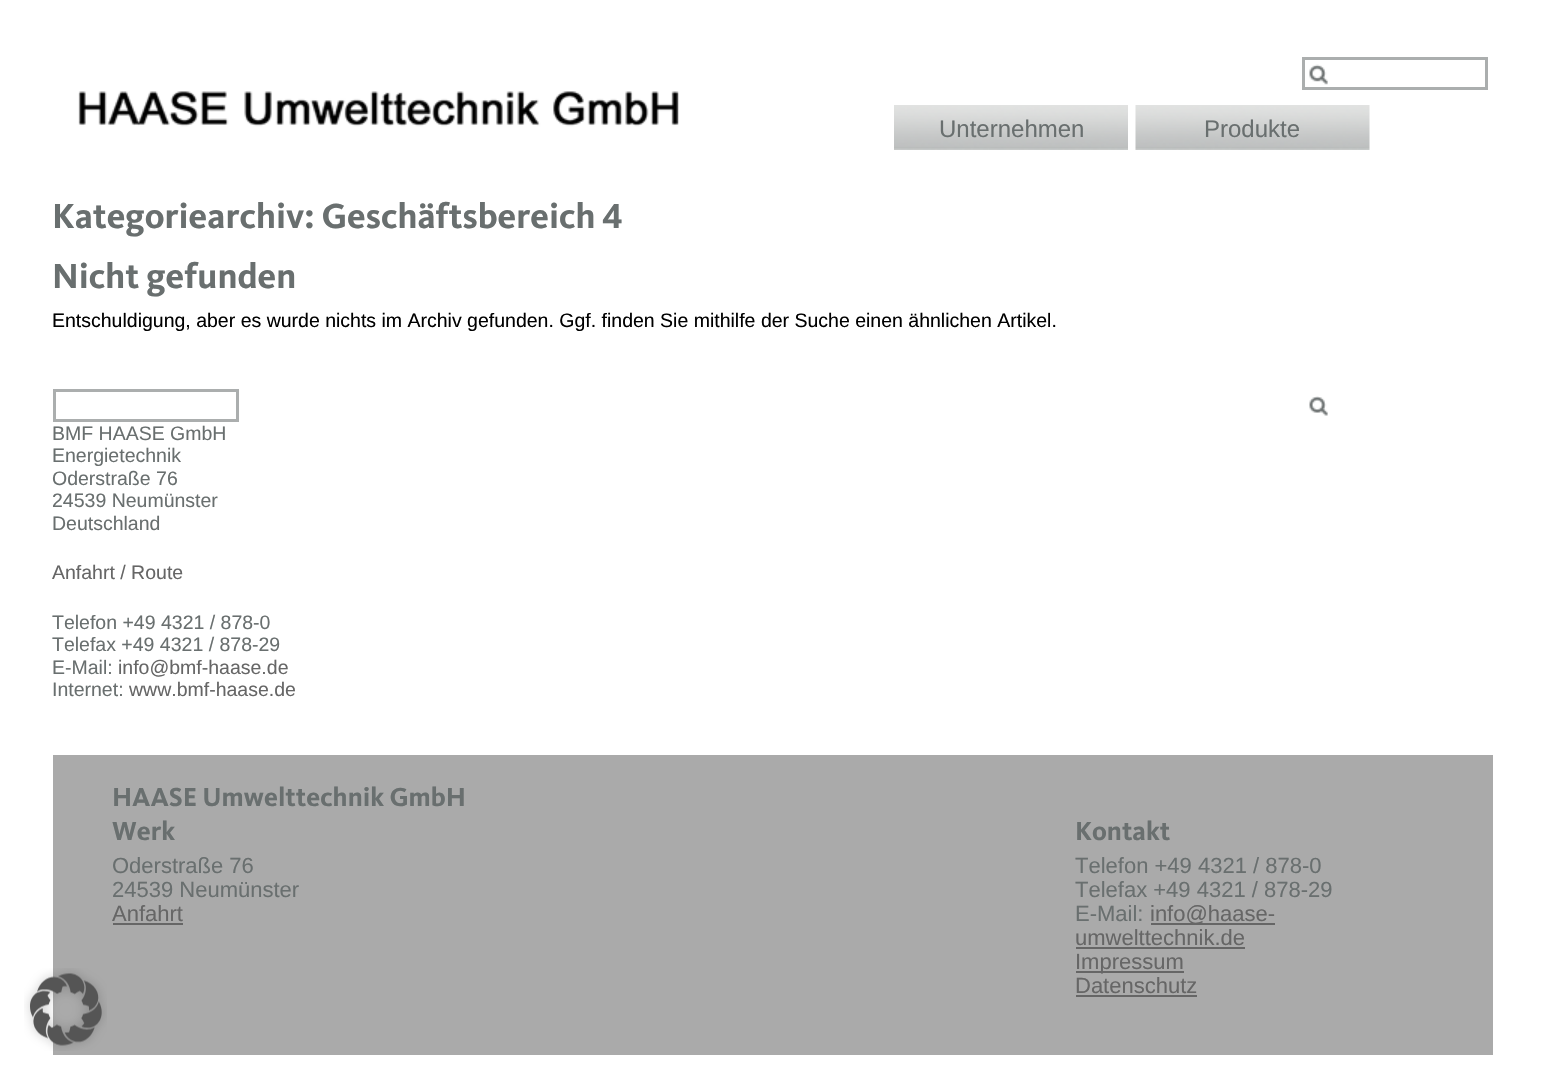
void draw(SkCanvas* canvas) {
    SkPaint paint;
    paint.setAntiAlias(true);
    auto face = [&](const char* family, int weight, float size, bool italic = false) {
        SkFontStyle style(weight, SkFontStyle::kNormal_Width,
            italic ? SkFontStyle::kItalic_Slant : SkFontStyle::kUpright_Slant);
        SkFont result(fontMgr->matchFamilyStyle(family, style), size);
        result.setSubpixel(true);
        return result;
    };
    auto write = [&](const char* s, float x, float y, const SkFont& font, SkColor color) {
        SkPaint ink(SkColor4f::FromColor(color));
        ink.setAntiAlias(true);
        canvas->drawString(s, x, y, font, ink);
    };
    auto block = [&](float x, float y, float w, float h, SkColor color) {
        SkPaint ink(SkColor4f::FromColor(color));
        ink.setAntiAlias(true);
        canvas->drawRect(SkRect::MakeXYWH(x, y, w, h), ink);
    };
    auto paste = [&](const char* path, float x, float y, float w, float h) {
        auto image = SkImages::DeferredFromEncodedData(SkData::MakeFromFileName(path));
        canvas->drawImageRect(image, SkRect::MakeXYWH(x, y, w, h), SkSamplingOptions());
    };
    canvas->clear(SK_ColorWHITE);
    paint.setStyle(SkPaint::kStroke_Style);
    paint.setStrokeWidth(3);
    paint.setColor(SkColorSetRGB(171, 174, 174));
    canvas->drawRect(SkRect::MakeXYWH(1303.5f, 58.5f, 183, 30), paint);
    paste("pic1.png", 1309, 64, 19, 21);
    paste("pic2.png", 78, 91, 601, 36);
    paste("pic3.png", 894, 105, 234, 45);
    auto kFont1 = face("Liberation Sans", 400, 24);
    write("Unternehmen", 939, 137, kFont1, SkColorSetRGB(105, 111, 111));
    paste("pic4.png", 1135, 105, 235, 45);
    write("Produkte", 1204, 137, kFont1, SkColorSetRGB(105, 111, 111));
    auto kFont2 = face("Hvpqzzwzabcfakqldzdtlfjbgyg", 700, 36);
    write("Kategoriearchiv: Geschäftsbereich 4", 52, 228, kFont2, SkColorSetRGB(105, 111, 111));
    write("Nicht gefunden", 52, 288, kFont2, SkColorSetRGB(105, 111, 111));
    auto kFont3 = face("Liberation Sans", 400, 19.5f);
    write("Entschuldigung, aber es wurde nichts im Archiv gefunden. Ggf. finden Sie mithilfe der Suche einen ähnlichen Artikel.", 52, 327, kFont3, SK_ColorBLACK);
    canvas->drawRect(SkRect::MakeXYWH(54.5f, 390.5f, 183, 30), paint);
    paste("pic5.png", 1309, 396, 19, 20);
    write("BMF HAASE GmbH", 52, 440, kFont3, SkColorSetRGB(105, 111, 111));
    write("Energietechnik", 52, 462, kFont3, SkColorSetRGB(105, 111, 111));
    write("Oderstraße 76", 52, 485, kFont3, SkColorSetRGB(105, 111, 111));
    write("24539 Neumünster", 52, 507, kFont3, SkColorSetRGB(105, 111, 111));
    write("Deutschland", 52, 530, kFont3, SkColorSetRGB(105, 111, 111));
    write("Anfahrt / Route", 52, 579, kFont3, SkColorSetRGB(102, 102, 102));
    write("Telefon +49 4321 / 878-0", 52, 629, kFont3, SkColorSetRGB(105, 111, 111));
    write("Telefax +49 4321 / 878-29", 52, 651, kFont3, SkColorSetRGB(105, 111, 111));
    write("E-Mail:", 52, 674, kFont3, SkColorSetRGB(105, 111, 111));
    write("info@bmf-haase.de", 118, 674, kFont3, SkColorSetRGB(102, 102, 102));
    write("Internet:", 52, 696, kFont3, SkColorSetRGB(105, 111, 111));
    write("www.bmf-haase.de", 129, 696, kFont3, SkColorSetRGB(102, 102, 102));
    block(53, 755, 1440, 300, SkColorSetRGB(170, 170, 170));
    auto kFont4 = face("Hvpqzzwzabcfakqldzdtlfjbgyg", 700, 27);
    write("HAASE Umwelttechnik GmbH", 112, 806, kFont4, SkColorSetRGB(105, 111, 111));
    write("Werk", 112, 840, kFont4, SkColorSetRGB(105, 111, 111));
    auto kFont5 = face("Liberation Sans", 400, 22);
    write("Oderstraße 76", 112, 873, kFont5, SkColorSetRGB(105, 111, 111));
    write("24539 Neumünster", 112, 897, kFont5, SkColorSetRGB(105, 111, 111));
    write("Anfahrt", 112, 921, kFont5, SkColorSetRGB(102, 102, 102));
    block(113, 923, 70, 2, SkColorSetRGB(102, 102, 102));
    write("Kontakt", 1075, 840, kFont4, SkColorSetRGB(105, 111, 111));
    write("Telefon +49 4321 / 878-0", 1075, 873, kFont5, SkColorSetRGB(105, 111, 111));
    write("Telefax +49 4321 / 878-29", 1075, 897, kFont5, SkColorSetRGB(105, 111, 111));
    write("E-Mail:", 1075, 921, kFont5, SkColorSetRGB(105, 111, 111));
    block(1151, 923, 124, 2, SkColorSetRGB(102, 102, 102));
    write("info@haase-", 1150, 921, kFont5, SkColorSetRGB(102, 102, 102));
    write("umwelttechnik.de", 1075, 945, kFont5, SkColorSetRGB(102, 102, 102));
    block(1076, 947, 169, 2, SkColorSetRGB(102, 102, 102));
    block(1076, 971, 108, 2, SkColorSetRGB(102, 102, 102));
    write("Impressum", 1075, 969, kFont5, SkColorSetRGB(102, 102, 102));
    write("Datenschutz", 1075, 993, kFont5, SkColorSetRGB(102, 102, 102));
    block(1076, 995, 121, 2, SkColorSetRGB(102, 102, 102));
    paste("pic6.png", 24, 968, 83, 83);
}
